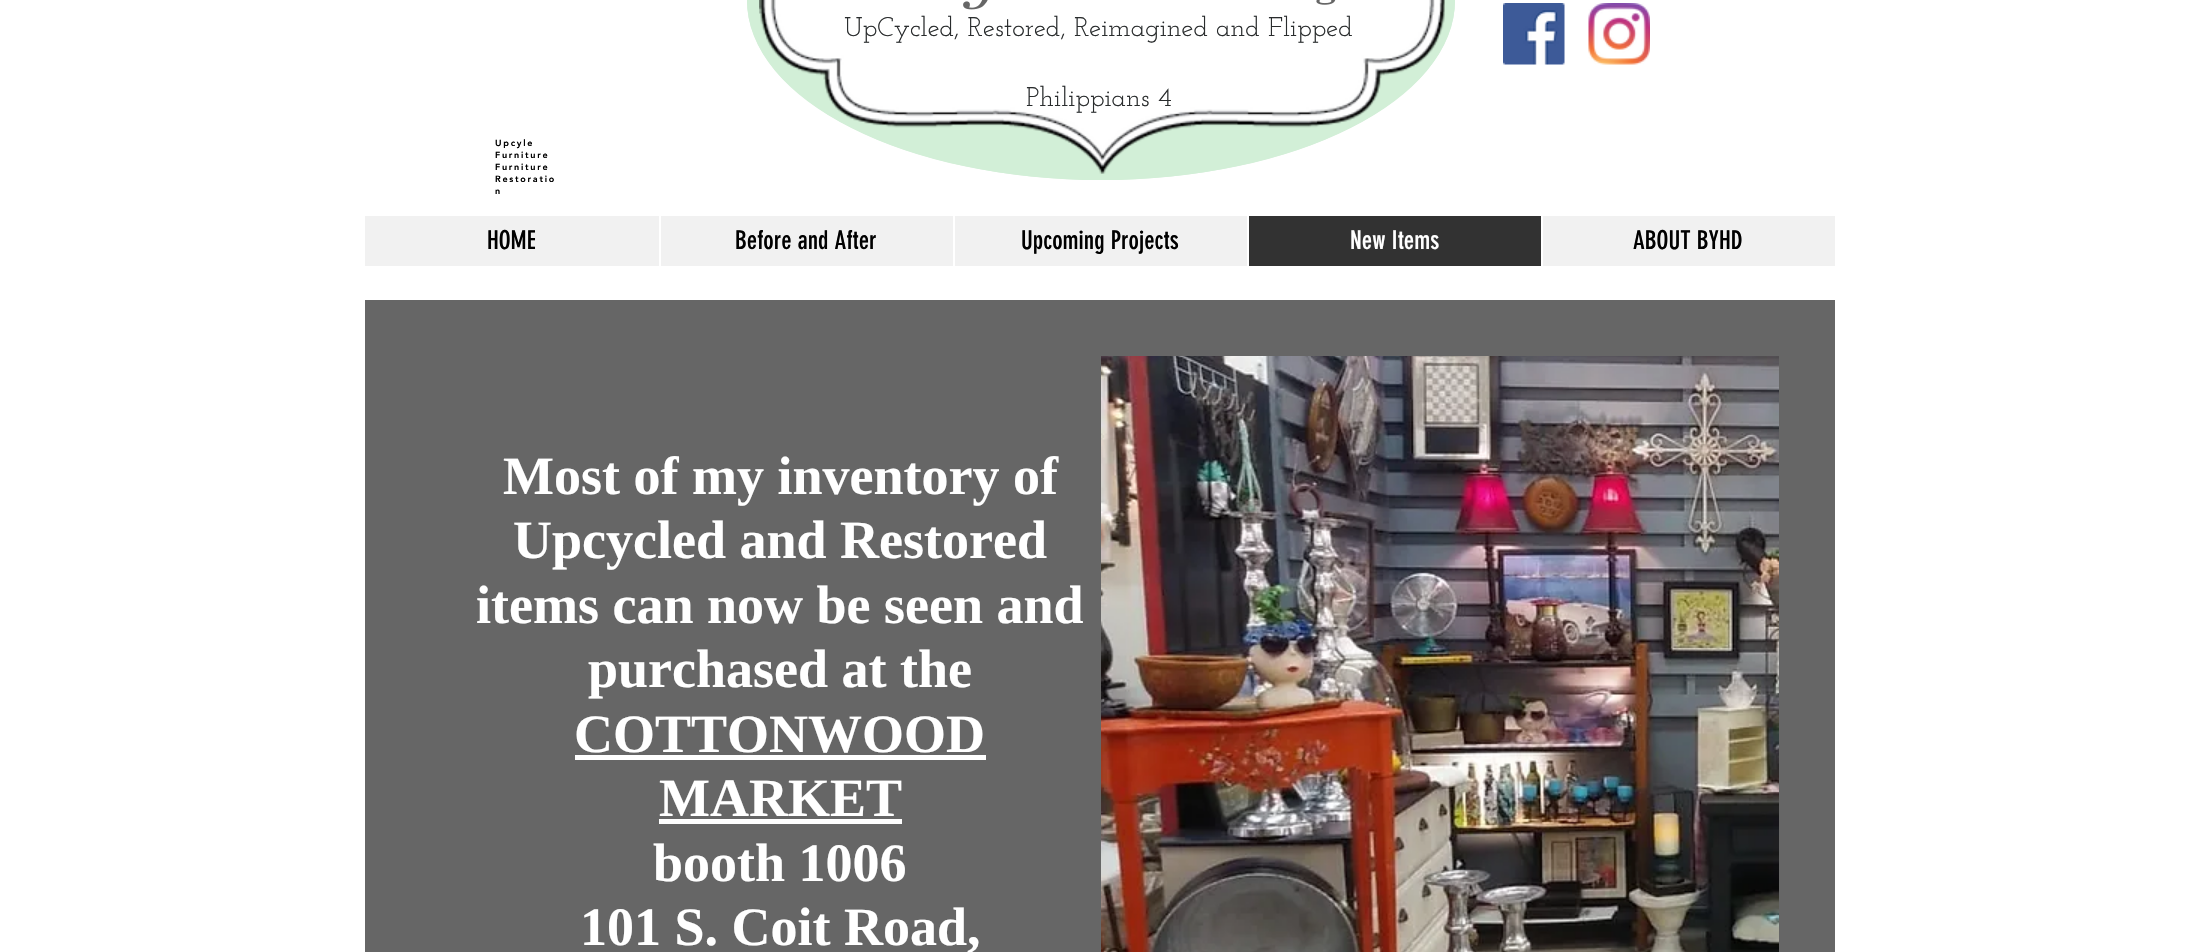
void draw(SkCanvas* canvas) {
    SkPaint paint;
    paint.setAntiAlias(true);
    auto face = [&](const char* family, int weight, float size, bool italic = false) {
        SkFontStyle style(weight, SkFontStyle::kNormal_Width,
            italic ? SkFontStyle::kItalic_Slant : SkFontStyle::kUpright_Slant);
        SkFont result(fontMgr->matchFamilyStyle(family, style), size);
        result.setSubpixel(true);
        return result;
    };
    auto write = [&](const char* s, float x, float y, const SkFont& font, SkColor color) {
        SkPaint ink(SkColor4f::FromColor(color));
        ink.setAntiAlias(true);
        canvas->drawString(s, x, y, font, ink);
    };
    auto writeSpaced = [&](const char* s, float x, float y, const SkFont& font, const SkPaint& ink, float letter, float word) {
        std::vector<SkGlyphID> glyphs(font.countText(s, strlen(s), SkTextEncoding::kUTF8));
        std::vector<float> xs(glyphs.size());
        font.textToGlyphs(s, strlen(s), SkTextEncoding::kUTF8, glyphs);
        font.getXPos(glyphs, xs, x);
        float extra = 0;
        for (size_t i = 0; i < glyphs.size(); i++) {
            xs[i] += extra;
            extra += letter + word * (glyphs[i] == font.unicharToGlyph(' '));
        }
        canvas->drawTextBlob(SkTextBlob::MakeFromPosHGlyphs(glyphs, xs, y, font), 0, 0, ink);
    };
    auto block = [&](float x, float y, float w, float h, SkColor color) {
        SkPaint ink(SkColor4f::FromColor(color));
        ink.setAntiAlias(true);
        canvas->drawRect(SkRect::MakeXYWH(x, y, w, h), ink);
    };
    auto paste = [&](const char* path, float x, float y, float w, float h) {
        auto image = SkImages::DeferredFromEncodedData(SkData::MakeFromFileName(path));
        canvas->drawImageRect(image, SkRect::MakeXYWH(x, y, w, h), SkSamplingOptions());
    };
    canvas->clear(SK_ColorWHITE);
    paint.setColor(SkColorSetRGB(210, 239, 215));
    canvas->drawOval(SkRect::MakeXYWH(747, -180, 708, 360), paint);
    paint.setStyle(SkPaint::kStroke_Style);
    paint.setStrokeWidth(6);
    canvas->drawPath(SkPathBuilder().moveTo(1101, -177).cubicTo(1295, -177, 1452, -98, 1452, 0).cubicTo(1452, 98, 1295, 177, 1101, 177).cubicTo(907, 177, 750, 98, 750, 0).cubicTo(750, -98, 907, -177, 1101, -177).close().detach(), paint);
    paste("pic1.png", 759, 0, 686, 174);
    paste("pic2.png", 1503, 3, 62, 62);
    paste("pic3.png", 1588, 3, 62, 62);
    paste("pic4.png", 963, 0, 373, 10);
    auto kFont1 = face("Josefin Slab", 400, 27);
    write("UpCycled, Restored, Reimagined and Flipped", 844, 36, kFont1, SkColorSetRGB(41, 44, 45));
    write("Philippians 4", 1026, 106, kFont1, SkColorSetRGB(41, 44, 45));
    auto kFont2 = face("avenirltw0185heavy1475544", 900, 9);
    paint.setStyle(SkPaint::kFill_Style);
    paint.setColor(SK_ColorBLACK);
    writeSpaced("Upcyle", 495, 146, kFont2, paint, 1.75f, 0);
    writeSpaced("Furniture", 495, 158, kFont2, paint, 1.75f, 0);
    writeSpaced("Furniture", 495, 170, kFont2, paint, 1.75f, 0);
    writeSpaced("Restoratio", 495, 182, kFont2, paint, 1.75f, 0);
    writeSpaced("n", 495, 194, kFont2, paint, 1.75f, 0);
    block(365, 216, 1470, 50, SkColorSetRGB(241, 241, 241));
    auto kFont3 = face("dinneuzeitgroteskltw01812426", 400, 25.5f);
    write("HOME", 487, 249, kFont3, SK_ColorBLACK);
    block(659, 216, 2, 50, SK_ColorWHITE);
    write("Before and After", 735, 249, kFont3, SK_ColorBLACK);
    block(953, 216, 2, 50, SK_ColorWHITE);
    write("Upcoming Projects", 1021, 249, kFont3, SK_ColorBLACK);
    block(1249, 216, 292, 50, SkColorSetRGB(50, 50, 50));
    block(1247, 216, 2, 50, SK_ColorWHITE);
    write("New Items", 1350, 249, kFont3, SK_ColorWHITE);
    block(1541, 216, 2, 50, SK_ColorWHITE);
    write("ABOUT BYHD", 1633, 249, kFont3, SK_ColorBLACK);
    block(365, 300, 1470, 652, SkColorSetRGB(102, 102, 102));
    auto kFont4 = face("Liberation Serif", 700, 54);
    write("Most of my inventory of", 503, 494, kFont4, SK_ColorWHITE);
    write("Upcycled and Restored", 513, 558, kFont4, SK_ColorWHITE);
    write("items can now be seen and", 476, 623, kFont4, SK_ColorWHITE);
    write("purchased at the", 588, 687, kFont4, SK_ColorWHITE);
    write("COTTONWOOD", 574, 752, kFont4, SK_ColorWHITE);
    block(575, 755, 411, 5, SK_ColorWHITE);
    write("MARKET", 659, 816, kFont4, SK_ColorWHITE);
    block(659, 819, 243, 5, SK_ColorWHITE);
    write("booth 1006", 653, 881, kFont4, SK_ColorWHITE);
    write("101 S. Coit Road,", 580, 945, kFont4, SK_ColorWHITE);
    paste("pic5.png", 1101, 356, 678, 596);
}
